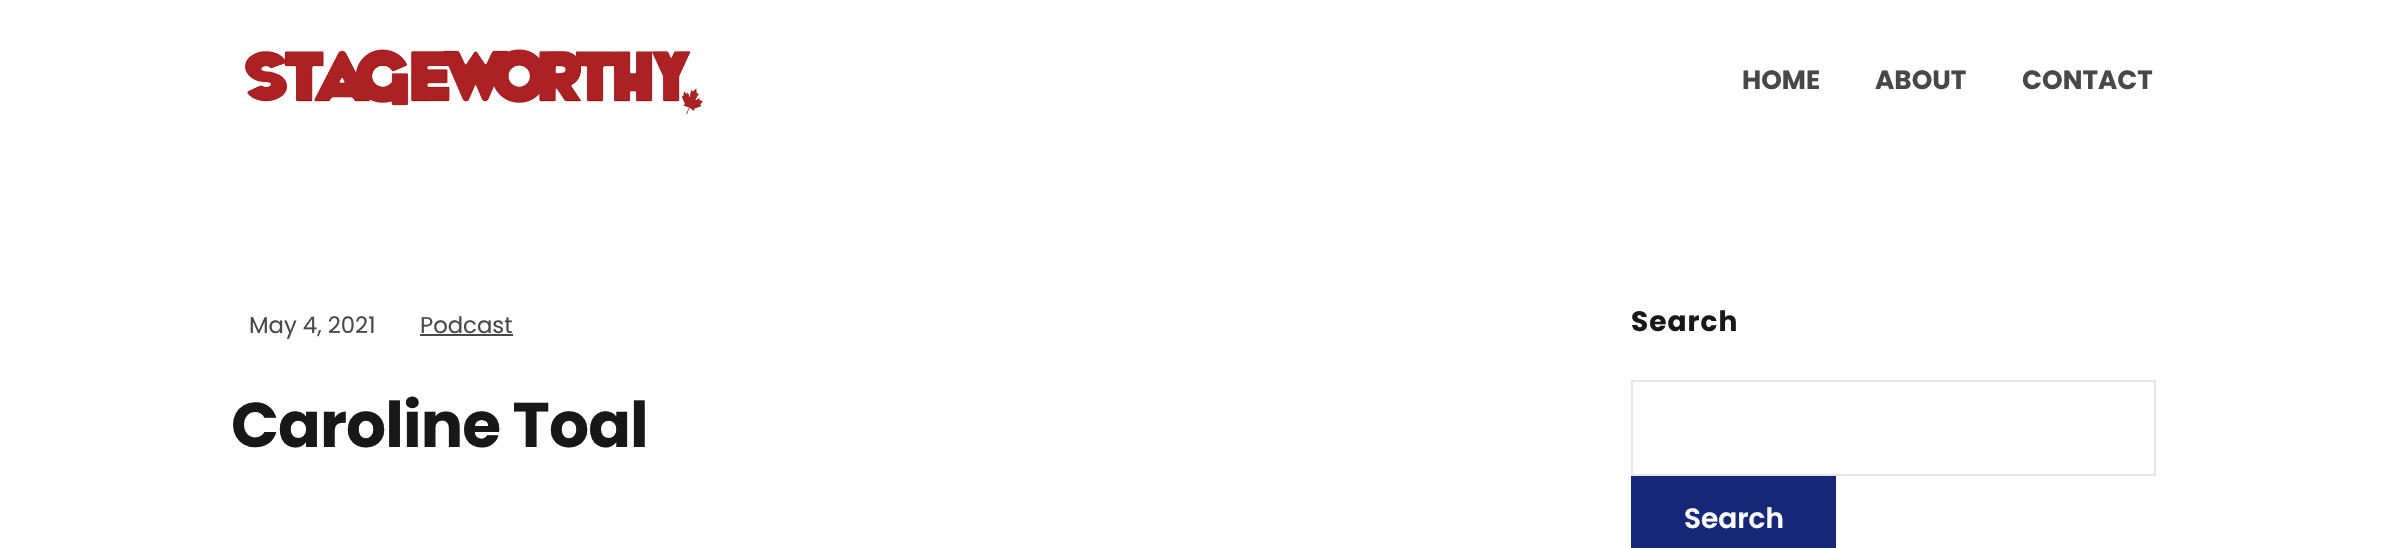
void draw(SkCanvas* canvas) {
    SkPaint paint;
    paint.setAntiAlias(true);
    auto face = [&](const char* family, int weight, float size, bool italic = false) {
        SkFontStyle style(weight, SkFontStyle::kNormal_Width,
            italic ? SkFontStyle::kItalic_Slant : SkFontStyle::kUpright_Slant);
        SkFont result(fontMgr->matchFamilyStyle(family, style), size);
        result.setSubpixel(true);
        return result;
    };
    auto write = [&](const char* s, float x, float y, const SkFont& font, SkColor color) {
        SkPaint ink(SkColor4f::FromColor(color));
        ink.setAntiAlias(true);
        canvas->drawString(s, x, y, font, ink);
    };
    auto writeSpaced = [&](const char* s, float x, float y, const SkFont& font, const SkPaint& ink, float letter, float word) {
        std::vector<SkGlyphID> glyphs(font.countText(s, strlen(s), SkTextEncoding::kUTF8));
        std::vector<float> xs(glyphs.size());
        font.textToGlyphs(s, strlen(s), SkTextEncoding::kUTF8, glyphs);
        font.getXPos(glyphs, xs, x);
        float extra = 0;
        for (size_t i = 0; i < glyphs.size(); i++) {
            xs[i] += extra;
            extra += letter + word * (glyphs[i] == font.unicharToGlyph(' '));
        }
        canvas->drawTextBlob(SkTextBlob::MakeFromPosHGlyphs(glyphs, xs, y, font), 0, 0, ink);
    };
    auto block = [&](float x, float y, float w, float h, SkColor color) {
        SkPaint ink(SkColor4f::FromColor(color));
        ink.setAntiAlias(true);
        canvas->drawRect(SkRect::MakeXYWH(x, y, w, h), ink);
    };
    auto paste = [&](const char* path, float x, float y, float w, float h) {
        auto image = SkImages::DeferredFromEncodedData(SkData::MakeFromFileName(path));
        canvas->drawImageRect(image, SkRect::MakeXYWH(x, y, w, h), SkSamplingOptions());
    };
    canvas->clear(SK_ColorWHITE);
    paste("pic1.png", 245, 49, 458, 66);
    auto kFont1 = face("Poppins", 700, 26.25f);
    write("HOME", 1742, 89, kFont1, SkColorSetRGB(72, 72, 72));
    write("ABOUT", 1875, 89, kFont1, SkColorSetRGB(72, 72, 72));
    write("CONTACT", 2022, 89, kFont1, SkColorSetRGB(72, 72, 72));
    auto kFont2 = face("Poppins", 400, 22.75f);
    write("May 4, 2021", 249, 333, kFont2, SkColorSetRGB(72, 72, 72));
    write("Podcast", 420, 333, kFont2, SkColorSetRGB(72, 72, 72));
    block(420, 334, 93, 2, SkColorSetRGB(72, 72, 72));
    auto kFont3 = face("Poppins", 700, 63);
    paint.setColor(SkColorSetRGB(24, 24, 24));
    writeSpaced("Caroline Toal", 231, 447, kFont3, paint, -0.9f, 0);
    auto kFont4 = face("Poppins", 700, 28);
    writeSpaced("Search", 1631, 331, kFont4, paint, 1, 0);
    paint.setStyle(SkPaint::kStroke_Style);
    paint.setStrokeWidth(2);
    paint.setColor(SkColorSetRGB(230, 230, 230));
    canvas->drawRect(SkRect::MakeXYWH(1632, 381, 523, 94), paint);
    block(1631, 476, 205, 72, SkColorSetRGB(24, 40, 121));
    auto kFont5 = face("Poppins", 600, 28);
    write("Search", 1684, 528, kFont5, SK_ColorWHITE);
}
